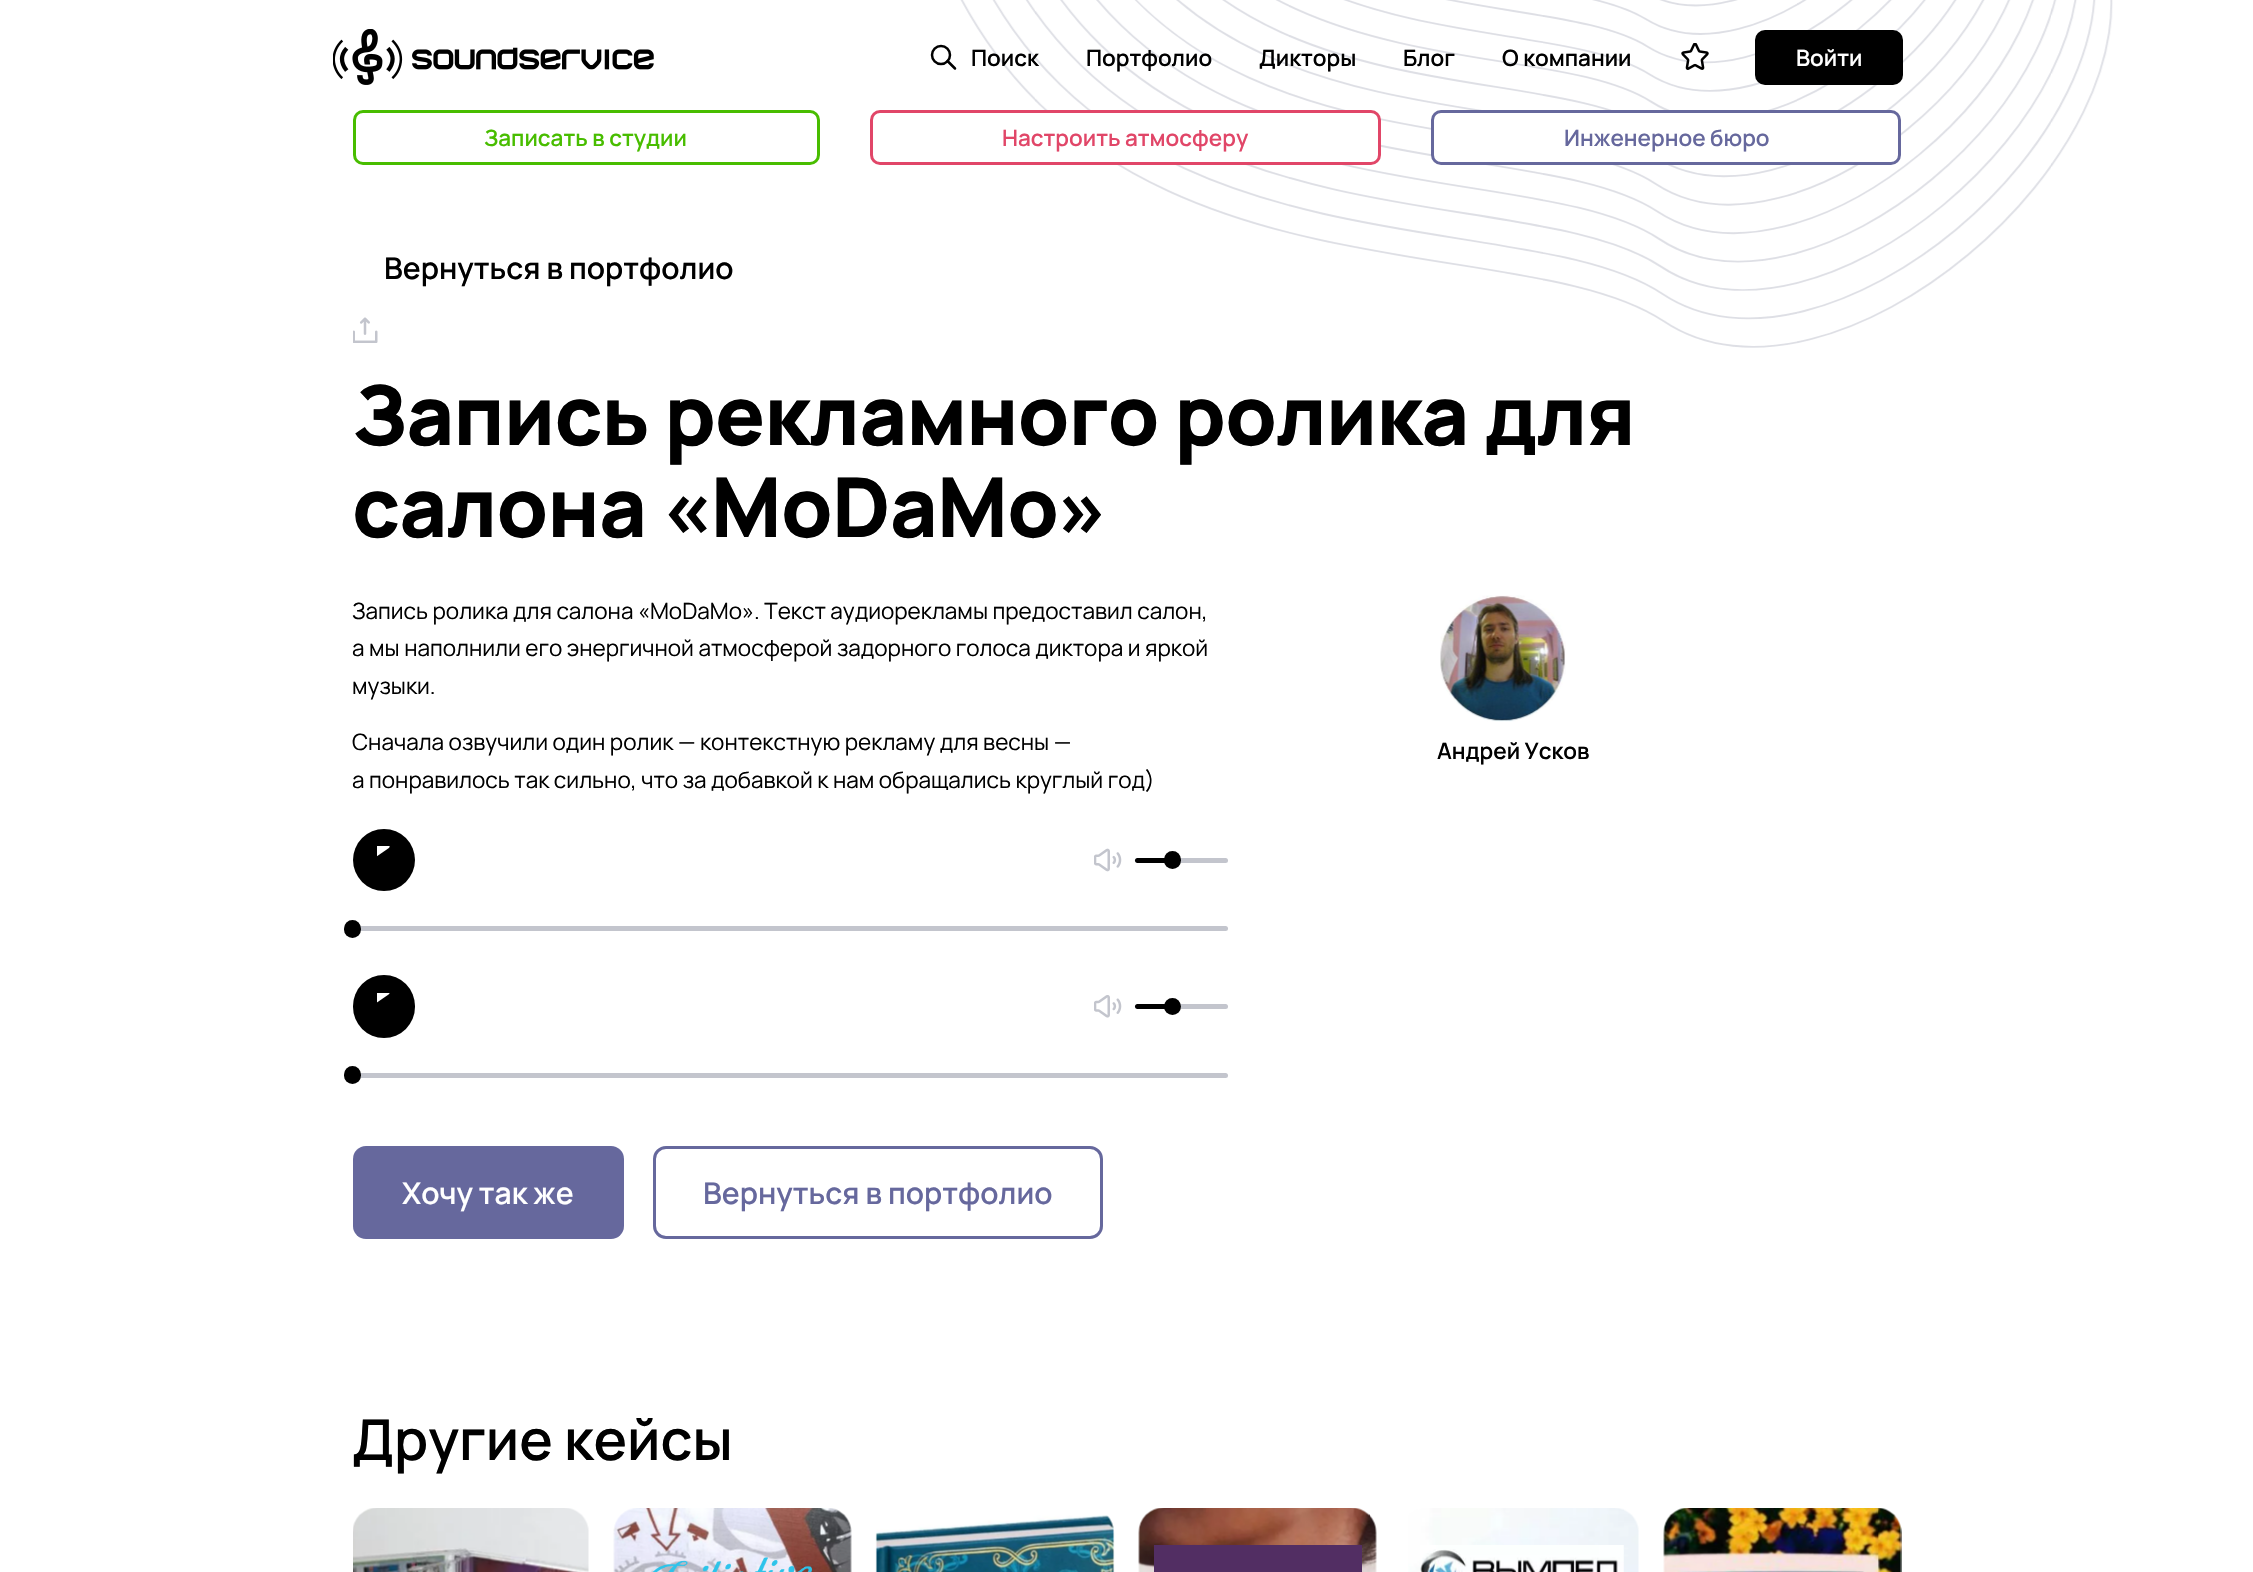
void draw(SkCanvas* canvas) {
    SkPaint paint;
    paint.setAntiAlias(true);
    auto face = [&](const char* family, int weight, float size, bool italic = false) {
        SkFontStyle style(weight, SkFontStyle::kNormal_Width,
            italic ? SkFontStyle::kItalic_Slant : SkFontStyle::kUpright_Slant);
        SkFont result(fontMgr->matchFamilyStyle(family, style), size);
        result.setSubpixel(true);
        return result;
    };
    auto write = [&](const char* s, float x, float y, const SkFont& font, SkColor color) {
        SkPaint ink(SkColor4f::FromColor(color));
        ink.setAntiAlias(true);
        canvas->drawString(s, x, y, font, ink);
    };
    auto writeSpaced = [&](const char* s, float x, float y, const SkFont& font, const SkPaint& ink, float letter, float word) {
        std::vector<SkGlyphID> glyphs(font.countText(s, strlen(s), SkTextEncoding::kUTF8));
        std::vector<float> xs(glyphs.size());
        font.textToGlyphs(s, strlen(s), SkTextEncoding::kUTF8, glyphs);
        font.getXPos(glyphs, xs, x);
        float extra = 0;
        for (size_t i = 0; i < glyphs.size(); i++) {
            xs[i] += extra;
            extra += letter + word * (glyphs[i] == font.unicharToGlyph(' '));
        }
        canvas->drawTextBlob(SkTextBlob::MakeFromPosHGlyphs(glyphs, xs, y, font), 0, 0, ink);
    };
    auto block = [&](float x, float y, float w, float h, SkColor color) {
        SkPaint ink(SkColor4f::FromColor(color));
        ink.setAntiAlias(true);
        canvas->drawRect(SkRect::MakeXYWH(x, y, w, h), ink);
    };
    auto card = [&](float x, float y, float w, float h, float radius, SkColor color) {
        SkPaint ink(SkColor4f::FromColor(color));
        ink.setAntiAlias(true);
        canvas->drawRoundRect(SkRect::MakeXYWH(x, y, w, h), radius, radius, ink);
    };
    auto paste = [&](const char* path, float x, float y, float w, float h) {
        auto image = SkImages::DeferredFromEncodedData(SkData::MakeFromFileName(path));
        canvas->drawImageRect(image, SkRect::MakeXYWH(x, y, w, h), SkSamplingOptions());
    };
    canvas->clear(SK_ColorWHITE);
    paste("pic1.png", 333, 29, 321, 56);
    paint.setStyle(SkPaint::kStroke_Style);
    paint.setStrokeWidth(2.5f);
    paint.setColor(SK_ColorBLACK);
    canvas->drawCircle(941, 55, 9, paint);
    paint.setStrokeCap(SkPaint::kRound_Cap);
    canvas->drawPath(SkPathBuilder().moveTo(947.5f, 61).lineTo(955, 68.5f).detach(), paint);
    paste("pic3.png", 960, 0, 1153, 348);
    auto kFont1 = face("Manrope", 600, 22.5f);
    write("Поиск", 971, 66, kFont1, SK_ColorBLACK);
    write("Портфолио", 1086, 66, kFont1, SK_ColorBLACK);
    write("Дикторы", 1259, 66, kFont1, SK_ColorBLACK);
    write("Блог", 1403, 66, kFont1, SK_ColorBLACK);
    write("О компании", 1502, 66, kFont1, SK_ColorBLACK);
    paste("pic2.png", 1681, 43, 28, 27);
    card(1755, 30, 148, 55, 10, SK_ColorBLACK);
    write("Войти", 1796, 66, kFont1, SK_ColorWHITE);
    paint.setStrokeWidth(3);
    paint.setStrokeCap(SkPaint::kButt_Cap);
    paint.setColor(SkColorSetRGB(72, 189, 0));
    canvas->drawRoundRect(SkRect::MakeXYWH(354.5f, 111.5f, 464, 52), 8.5f, 8.5f, paint);
    write("Записать в студии", 484, 146, kFont1, SkColorSetRGB(72, 189, 0));
    paint.setStyle(SkPaint::kFill_Style);
    paint.setColor(SK_ColorWHITE);
    canvas->drawRoundRect(SkRect::MakeXYWH(871.5f, 111.5f, 508, 52), 8.5f, 8.5f, paint);
    paint.setStyle(SkPaint::kStroke_Style);
    paint.setColor(SkColorSetRGB(225, 70, 104));
    canvas->drawRoundRect(SkRect::MakeXYWH(871.5f, 111.5f, 508, 52), 8.5f, 8.5f, paint);
    write("Настроить атмосферу", 1002, 146, kFont1, SkColorSetRGB(225, 70, 104));
    paint.setStyle(SkPaint::kFill_Style);
    paint.setColor(SK_ColorWHITE);
    canvas->drawRoundRect(SkRect::MakeXYWH(1432.5f, 111.5f, 467, 52), 8.5f, 8.5f, paint);
    paint.setStyle(SkPaint::kStroke_Style);
    paint.setColor(SkColorSetRGB(102, 104, 157));
    canvas->drawRoundRect(SkRect::MakeXYWH(1432.5f, 111.5f, 467, 52), 8.5f, 8.5f, paint);
    write("Инженерное бюро", 1564, 146, kFont1, SkColorSetRGB(102, 104, 157));
    auto kFont2 = face("Manrope", 600, 30);
    write("Вернуться в портфолио", 384, 279, kFont2, SK_ColorBLACK);
    paste("pic4.png", 353, 317, 25, 26);
    auto kFont3 = face("Manrope", 800, 82.5f);
    paint.setStyle(SkPaint::kFill_Style);
    paint.setColor(SK_ColorBLACK);
    writeSpaced("Запись рекламного ролика для", 352, 445, kFont3, paint, -0.8f, 0);
    writeSpaced("салона «MoDaMo»", 352, 537, kFont3, paint, -0.8f, 0);
    auto kFont4 = face("Manrope", 400, 22.5f);
    write("Запись ролика для салона «MoDaMo». Текст аудиорекламы предоставил салон,", 352, 619, kFont4, SK_ColorBLACK);
    write("а мы наполнили его энергичной атмосферой задорного голоса диктора и яркой", 352, 656, kFont4, SK_ColorBLACK);
    write("музыки.", 352, 694, kFont4, SK_ColorBLACK);
    write("Сначала озвучили один ролик — контекстную рекламу для весны —", 352, 750, kFont4, SK_ColorBLACK);
    write("а понравилось так сильно, что за добавкой к нам обращались круглый год)", 352, 788, kFont4, SK_ColorBLACK);
    canvas->drawCircle(384, 860, 31, paint);
    paste("pic5.png", 377, 846, 13, 11);
    paste("pic6.png", 1094, 848, 28, 24);
    card(1135, 858, 93, 5, 2.5f, SkColorSetRGB(195, 197, 205));
    canvas->drawPath(SkPathBuilder().moveTo(1137.5f, 858).lineTo(1171, 858).lineTo(1171, 863).lineTo(1137.5f, 863).cubicTo(1136, 863, 1135, 862, 1135, 860.5f).cubicTo(1135, 859, 1136, 858, 1137.5f, 858).close().detach(), paint);
    card(1164, 851, 17, 18, 8.5f, SK_ColorBLACK);
    card(353, 926, 875, 5, 2.5f, SkColorSetRGB(195, 197, 205));
    card(344, 920, 17, 18, 8.5f, SK_ColorBLACK);
    card(353, 975, 62, 63, 31, SK_ColorBLACK);
    paste("pic7.png", 377, 993, 13, 10);
    paste("pic8.png", 1094, 995, 28, 23);
    card(1135, 1004, 93, 5, 2.5f, SkColorSetRGB(195, 197, 205));
    canvas->drawPath(SkPathBuilder().moveTo(1137.5f, 1004).lineTo(1171, 1004).lineTo(1171, 1009).lineTo(1137.5f, 1009).cubicTo(1136, 1009, 1135, 1008, 1135, 1006.5f).cubicTo(1135, 1005, 1136, 1004, 1137.5f, 1004).close().detach(), paint);
    canvas->drawCircle(1172.5f, 1006.5f, 8.5f, paint);
    card(353, 1073, 875, 5, 2.5f, SkColorSetRGB(195, 197, 205));
    card(344, 1066, 17, 18, 8.5f, SK_ColorBLACK);
    paste("pic9.png", 1440, 595, 126, 127);
    write("Андрей Усков", 1437, 759, kFont1, SK_ColorBLACK);
    card(353, 1146, 271, 93, 13, SkColorSetRGB(102, 104, 157));
    write("Хочу так же", 402, 1204, kFont2, SK_ColorWHITE);
    paint.setStyle(SkPaint::kStroke_Style);
    paint.setColor(SkColorSetRGB(102, 104, 157));
    canvas->drawRoundRect(SkRect::MakeXYWH(654.5f, 1147.5f, 447, 90), 11.5f, 11.5f, paint);
    write("Вернуться в портфолио", 703, 1204, kFont2, SkColorSetRGB(102, 104, 157));
    auto kFont5 = face("Manrope", 600, 56.25f);
    write("Другие кейсы", 352, 1460, kFont5, SK_ColorBLACK);
    paste("pic10.png", 353, 1508, 236, 64);
    paste("pic11.png", 613, 1508, 239, 64);
    paste("pic12.png", 652, 1557, 160, 15);
    paste("pic13.png", 875, 1515, 240, 57);
    paste("pic14.png", 1138, 1508, 239, 64);
    block(1154, 1545, 208, 27, SkColorSetRGB(82, 46, 99));
    paste("pic15.png", 1408, 1508, 231, 64);
    paste("pic16.png", 1420, 1545, 204, 27);
    paste("pic17.png", 1663, 1508, 239, 64);
}
